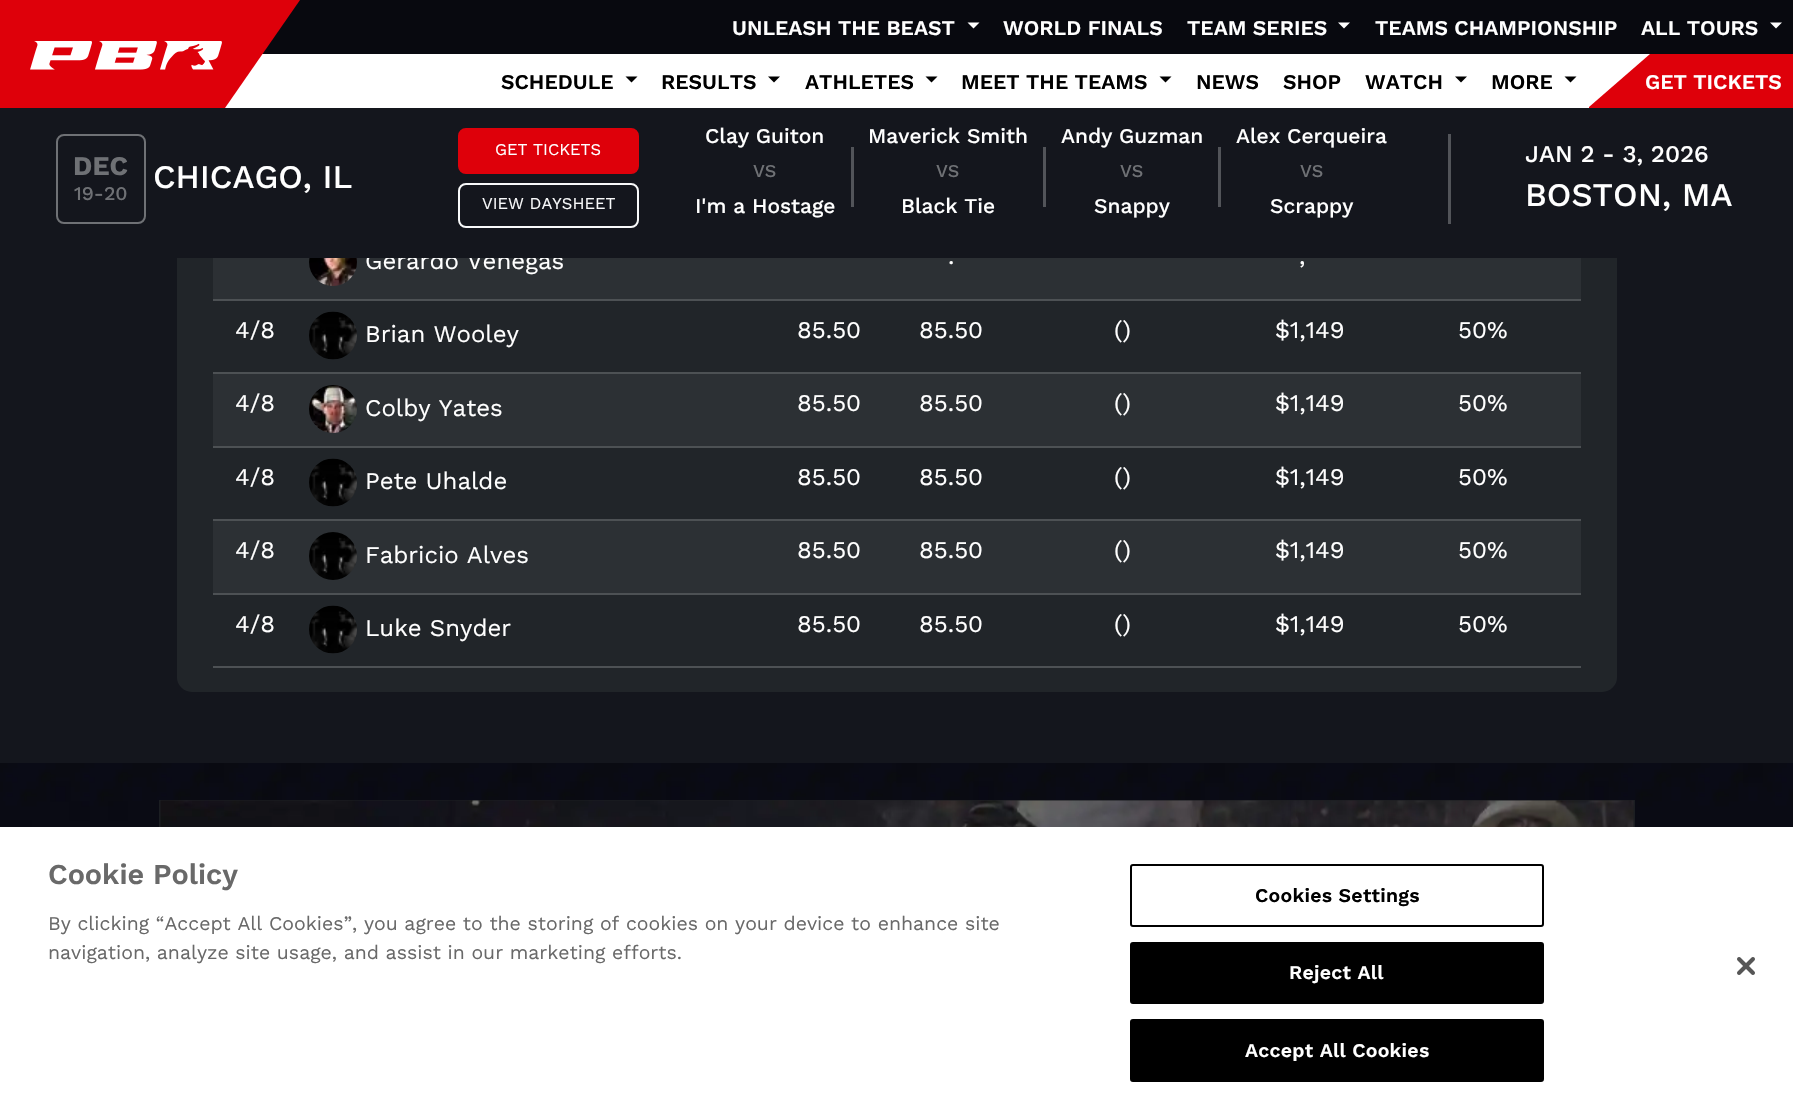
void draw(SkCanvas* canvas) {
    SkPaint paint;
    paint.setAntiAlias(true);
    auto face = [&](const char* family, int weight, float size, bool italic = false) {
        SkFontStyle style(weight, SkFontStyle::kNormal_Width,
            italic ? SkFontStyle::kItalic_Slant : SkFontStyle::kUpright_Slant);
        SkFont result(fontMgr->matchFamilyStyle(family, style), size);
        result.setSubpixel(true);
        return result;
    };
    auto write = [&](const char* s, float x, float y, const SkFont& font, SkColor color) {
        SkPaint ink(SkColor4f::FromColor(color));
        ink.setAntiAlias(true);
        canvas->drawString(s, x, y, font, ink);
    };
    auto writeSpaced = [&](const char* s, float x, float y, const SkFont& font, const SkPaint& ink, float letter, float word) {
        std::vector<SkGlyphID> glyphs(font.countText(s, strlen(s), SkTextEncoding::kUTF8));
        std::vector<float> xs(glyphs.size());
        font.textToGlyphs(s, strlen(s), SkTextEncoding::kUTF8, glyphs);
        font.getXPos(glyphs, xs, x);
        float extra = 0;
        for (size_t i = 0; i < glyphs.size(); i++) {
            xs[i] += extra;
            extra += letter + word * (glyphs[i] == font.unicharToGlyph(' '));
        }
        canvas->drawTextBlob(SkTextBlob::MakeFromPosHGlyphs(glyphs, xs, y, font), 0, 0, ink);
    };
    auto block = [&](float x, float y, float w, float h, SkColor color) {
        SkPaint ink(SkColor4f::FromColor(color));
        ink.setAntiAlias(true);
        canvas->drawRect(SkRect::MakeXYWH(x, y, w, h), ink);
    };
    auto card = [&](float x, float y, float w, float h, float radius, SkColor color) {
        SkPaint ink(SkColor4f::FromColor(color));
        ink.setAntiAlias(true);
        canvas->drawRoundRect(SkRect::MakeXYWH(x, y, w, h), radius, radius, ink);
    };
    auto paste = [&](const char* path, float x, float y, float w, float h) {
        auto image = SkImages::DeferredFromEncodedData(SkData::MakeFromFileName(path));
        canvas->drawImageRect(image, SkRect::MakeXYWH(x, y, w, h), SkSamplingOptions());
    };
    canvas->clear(SkColorSetRGB(20, 22, 29));
    card(177, -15, 1440, 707, 15, SkColorSetRGB(33, 37, 41));
    block(262, 0, 1531, 54, SkColorSetRGB(8, 9, 15));
    block(225, 54, 1425, 54, SK_ColorWHITE);
    paint.setColor(SkColorSetRGB(222, 0, 10));
    canvas->drawPath(SkPathBuilder().moveTo(0, 0).lineTo(0, 108).lineTo(225, 108).lineTo(300, 0).close().detach(), paint);
    paste("pic1.png", 30, 41, 192, 29);
    auto kFont1 = face("Work Sans", 600, 21);
    write("UNLEASH THE BEAST", 732, 35, kFont1, SK_ColorWHITE);
    paint.setColor(SK_ColorWHITE);
    canvas->drawPath(SkPathBuilder().moveTo(967.5f, 22.5f).lineTo(979.5f, 22.5f).lineTo(973.5f, 28.5f).close().detach(), paint);
    write("WORLD FINALS", 1003, 35, kFont1, SK_ColorWHITE);
    write("TEAM SERIES", 1187, 35, kFont1, SK_ColorWHITE);
    canvas->drawPath(SkPathBuilder().moveTo(1338, 22.5f).lineTo(1350, 22.5f).lineTo(1344, 28.5f).close().detach(), paint);
    write("TEAMS CHAMPIONSHIP", 1375, 35, kFont1, SK_ColorWHITE);
    write("ALL TOURS", 1641, 35, kFont1, SK_ColorWHITE);
    canvas->drawPath(SkPathBuilder().moveTo(1770, 22.5f).lineTo(1782, 22.5f).lineTo(1776, 28.5f).close().detach(), paint);
    write("SCHEDULE", 501, 89, kFont1, SK_ColorBLACK);
    paint.setColor(SK_ColorBLACK);
    canvas->drawPath(SkPathBuilder().moveTo(625.5f, 76.5f).lineTo(637.5f, 76.5f).lineTo(631.5f, 82.5f).close().detach(), paint);
    write("RESULTS", 661, 89, kFont1, SK_ColorBLACK);
    canvas->drawPath(SkPathBuilder().moveTo(768, 76.5f).lineTo(780, 76.5f).lineTo(774, 82.5f).close().detach(), paint);
    write("ATHLETES", 805, 89, kFont1, SK_ColorBLACK);
    canvas->drawPath(SkPathBuilder().moveTo(925.5f, 76.5f).lineTo(937.5f, 76.5f).lineTo(931.5f, 82.5f).close().detach(), paint);
    write("MEET THE TEAMS", 961, 89, kFont1, SK_ColorBLACK);
    canvas->drawPath(SkPathBuilder().moveTo(1159.5f, 76.5f).lineTo(1171.5f, 76.5f).lineTo(1165.5f, 82.5f).close().detach(), paint);
    write("NEWS", 1196, 89, kFont1, SK_ColorBLACK);
    write("SHOP", 1283, 89, kFont1, SK_ColorBLACK);
    write("WATCH", 1365, 89, kFont1, SK_ColorBLACK);
    canvas->drawPath(SkPathBuilder().moveTo(1455, 76.5f).lineTo(1467, 76.5f).lineTo(1461, 82.5f).close().detach(), paint);
    write("MORE", 1491, 89, kFont1, SK_ColorBLACK);
    canvas->drawPath(SkPathBuilder().moveTo(1564.5f, 76.5f).lineTo(1576.5f, 76.5f).lineTo(1570.5f, 82.5f).close().detach(), paint);
    paint.setColor(SkColorSetRGB(222, 0, 10));
    canvas->drawPath(SkPathBuilder().moveTo(1650, 54).lineTo(1589, 107).lineTo(1589, 108).lineTo(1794, 108).lineTo(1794, 54).close().detach(), paint);
    write("GET TICKETS", 1645, 89, kFont1, SK_ColorWHITE);
    block(213, 258, 1368, 41, SkColorSetRGB(44, 48, 52));
    auto kFont2 = face("Work Sans", 400, 24);
    write("Gerardo Venegas", 365, 269, kFont2, SK_ColorWHITE);
    block(177, 108, 1440, 150, SkColorSetRGB(20, 22, 29));
    paint.setStyle(SkPaint::kStroke_Style);
    paint.setStrokeWidth(2);
    paint.setColor(SkColorSetRGB(111, 113, 117));
    canvas->drawRoundRect(SkRect::MakeXYWH(57, 135, 88, 88), 7, 7, paint);
    auto kFont3 = face("Work Sans", 700, 27);
    write("DEC", 73, 175, kFont3, SkColorSetRGB(111, 113, 117));
    auto kFont4 = face("Work Sans", 500, 19.5f);
    write("19-20", 74, 200, kFont4, SkColorSetRGB(111, 113, 117));
    auto kFont5 = face("Work Sans", 500, 33);
    write("CHICAGO, IL", 153, 188, kFont5, SK_ColorWHITE);
    paint.setStyle(SkPaint::kFill_Style);
    paint.setColor(SkColorSetRGB(222, 0, 10));
    canvas->drawRoundRect(SkRect::MakeXYWH(459, 129, 179, 44), 7, 7, paint);
    paint.setStyle(SkPaint::kStroke_Style);
    canvas->drawRoundRect(SkRect::MakeXYWH(459, 129, 179, 44), 7, 7, paint);
    auto kFont6 = face("Work Sans", 400, 16.5f);
    write("GET TICKETS", 495, 155, kFont6, SK_ColorWHITE);
    paint.setColor(SkColorSetRGB(248, 249, 250));
    canvas->drawRoundRect(SkRect::MakeXYWH(459, 184, 179, 43), 7, 7, paint);
    write("VIEW DAYSHEET", 482, 209, kFont6, SkColorSetRGB(248, 249, 250));
    auto kFont7 = face("Work Sans", 500, 21);
    write("Clay Guiton", 705, 143, kFont7, SK_ColorWHITE);
    auto kFont8 = face("Work Sans", 500, 18);
    write("VS", 753, 177, kFont8, SkColorSetRGB(111, 113, 117));
    write("I'm a Hostage", 695, 213, kFont7, SK_ColorWHITE);
    block(851, 147, 3, 60, SkColorSetRGB(82, 84, 89));
    write("Maverick Smith", 868, 143, kFont7, SK_ColorWHITE);
    write("VS", 936, 177, kFont8, SkColorSetRGB(111, 113, 117));
    write("Black Tie", 901, 213, kFont7, SK_ColorWHITE);
    block(1043, 147, 3, 60, SkColorSetRGB(82, 84, 89));
    write("Andy Guzman", 1061, 143, kFont7, SK_ColorWHITE);
    write("VS", 1120, 177, kFont8, SkColorSetRGB(111, 113, 117));
    write("Snappy", 1094, 213, kFont7, SK_ColorWHITE);
    block(1218, 147, 3, 60, SkColorSetRGB(82, 84, 89));
    write("Alex Cerqueira", 1236, 143, kFont7, SK_ColorWHITE);
    write("VS", 1300, 177, kFont8, SkColorSetRGB(111, 113, 117));
    write("Scrappy", 1270, 213, kFont7, SK_ColorWHITE);
    block(1448, 134, 3, 90, SkColorSetRGB(82, 84, 89));
    auto kFont9 = face("Work Sans", 500, 24);
    write("JAN 2 - 3, 2026", 1525, 162, kFont9, SK_ColorWHITE);
    write("BOSTON, MA", 1525, 206, kFont5, SK_ColorWHITE);
    paste("pic2.png", 309, 258, 48, 28);
    write(".", 948, 264, kFont2, SK_ColorWHITE);
    write(",", 1299, 264, kFont2, SK_ColorWHITE);
    block(213, 299, 1368, 2, SkColorSetRGB(77, 81, 84));
    write("4/8", 235, 338, kFont2, SK_ColorWHITE);
    paste("pic3.png", 309, 311, 48, 49);
    write("Brian Wooley", 365, 342, kFont2, SK_ColorWHITE);
    write("85.50", 797, 338, kFont2, SK_ColorWHITE);
    write("85.50", 919, 338, kFont2, SK_ColorWHITE);
    write("()", 1114, 338, kFont2, SK_ColorWHITE);
    write("$1,149", 1275, 338, kFont2, SK_ColorWHITE);
    block(213, 372, 1368, 2, SkColorSetRGB(77, 81, 84));
    write("50%", 1458, 338, kFont2, SK_ColorWHITE);
    block(213, 374, 1368, 72, SkColorSetRGB(44, 48, 52));
    write("4/8", 235, 411, kFont2, SK_ColorWHITE);
    paste("pic4.png", 309, 385, 48, 48);
    write("Colby Yates", 365, 416, kFont2, SK_ColorWHITE);
    write("85.50", 797, 411, kFont2, SK_ColorWHITE);
    write("85.50", 919, 411, kFont2, SK_ColorWHITE);
    write("()", 1114, 411, kFont2, SK_ColorWHITE);
    write("$1,149", 1275, 411, kFont2, SK_ColorWHITE);
    block(213, 446, 1368, 2, SkColorSetRGB(77, 81, 84));
    write("50%", 1458, 411, kFont2, SK_ColorWHITE);
    write("4/8", 235, 485, kFont2, SK_ColorWHITE);
    paste("pic3.png", 309, 458, 48, 49);
    write("Pete Uhalde", 365, 489, kFont2, SK_ColorWHITE);
    write("85.50", 797, 485, kFont2, SK_ColorWHITE);
    write("85.50", 919, 485, kFont2, SK_ColorWHITE);
    write("()", 1114, 485, kFont2, SK_ColorWHITE);
    write("$1,149", 1275, 485, kFont2, SK_ColorWHITE);
    block(213, 519, 1368, 2, SkColorSetRGB(77, 81, 84));
    write("50%", 1458, 485, kFont2, SK_ColorWHITE);
    block(213, 521, 1368, 72, SkColorSetRGB(44, 48, 52));
    write("4/8", 235, 558, kFont2, SK_ColorWHITE);
    paste("pic5.png", 309, 532, 48, 48);
    write("Fabricio Alves", 365, 563, kFont2, SK_ColorWHITE);
    write("85.50", 797, 558, kFont2, SK_ColorWHITE);
    write("85.50", 919, 558, kFont2, SK_ColorWHITE);
    write("()", 1114, 558, kFont2, SK_ColorWHITE);
    write("$1,149", 1275, 558, kFont2, SK_ColorWHITE);
    block(213, 593, 1368, 2, SkColorSetRGB(77, 81, 84));
    write("50%", 1458, 558, kFont2, SK_ColorWHITE);
    write("4/8", 235, 632, kFont2, SK_ColorWHITE);
    paste("pic6.png", 309, 605, 48, 49);
    write("Luke Snyder", 365, 636, kFont2, SK_ColorWHITE);
    write("85.50", 797, 632, kFont2, SK_ColorWHITE);
    write("85.50", 919, 632, kFont2, SK_ColorWHITE);
    write("()", 1114, 632, kFont2, SK_ColorWHITE);
    write("$1,149", 1275, 632, kFont2, SK_ColorWHITE);
    block(213, 666, 1368, 2, SkColorSetRGB(77, 81, 84));
    write("50%", 1458, 632, kFont2, SK_ColorWHITE);
    paste("pic7.png", 0, 763, 1793, 64);
    paint.setColor(SkColorSetRGB(27, 30, 34));
    canvas->drawRect(SkRect::MakeXYWH(160, 801, 1474, 277), paint);
    paste("pic8.png", 160, 800, 1474, 27);
    block(0, 827, 1793, 284, SK_ColorWHITE);
    auto kFont10 = face("Work Sans", 600, 28.75f);
    write("Cookie Policy", 48, 884, kFont10, SkColorSetRGB(105, 105, 105));
    auto kFont11 = face("Work Sans", 400, 19.5f);
    write("By clicking “Accept All Cookies”, you agree to the storing of cookies on your device to enhance site", 48, 930, kFont11, SkColorSetRGB(105, 105, 105));
    write("navigation, analyze site usage, and assist in our marketing efforts.", 48, 959, kFont11, SkColorSetRGB(105, 105, 105));
    paint.setColor(SK_ColorBLACK);
    canvas->drawRoundRect(SkRect::MakeXYWH(1131, 865, 412, 61), 2, 2, paint);
    auto kFont12 = face("Work Sans", 600, 19.5f);
    paint.setStyle(SkPaint::kFill_Style);
    writeSpaced("Cookies Settings", 1255, 902, kFont12, paint, 0.25f, 0);
    canvas->drawRoundRect(SkRect::MakeXYWH(1131, 943, 412, 60), 2, 2, paint);
    paint.setStyle(SkPaint::kStroke_Style);
    canvas->drawRoundRect(SkRect::MakeXYWH(1131, 943, 412, 60), 2, 2, paint);
    paint.setStyle(SkPaint::kFill_Style);
    paint.setColor(SK_ColorWHITE);
    writeSpaced("Reject All", 1289, 979, kFont12, paint, 0.25f, 0);
    paint.setColor(SK_ColorBLACK);
    canvas->drawRoundRect(SkRect::MakeXYWH(1131, 1020, 412, 61), 2, 2, paint);
    paint.setStyle(SkPaint::kStroke_Style);
    canvas->drawRoundRect(SkRect::MakeXYWH(1131, 1020, 412, 61), 2, 2, paint);
    paint.setStyle(SkPaint::kFill_Style);
    paint.setColor(SK_ColorWHITE);
    writeSpaced("Accept All Cookies", 1245, 1057, kFont12, paint, 0.25f, 0);
    paste("pic9.png", 1737, 957, 18, 18);
}
